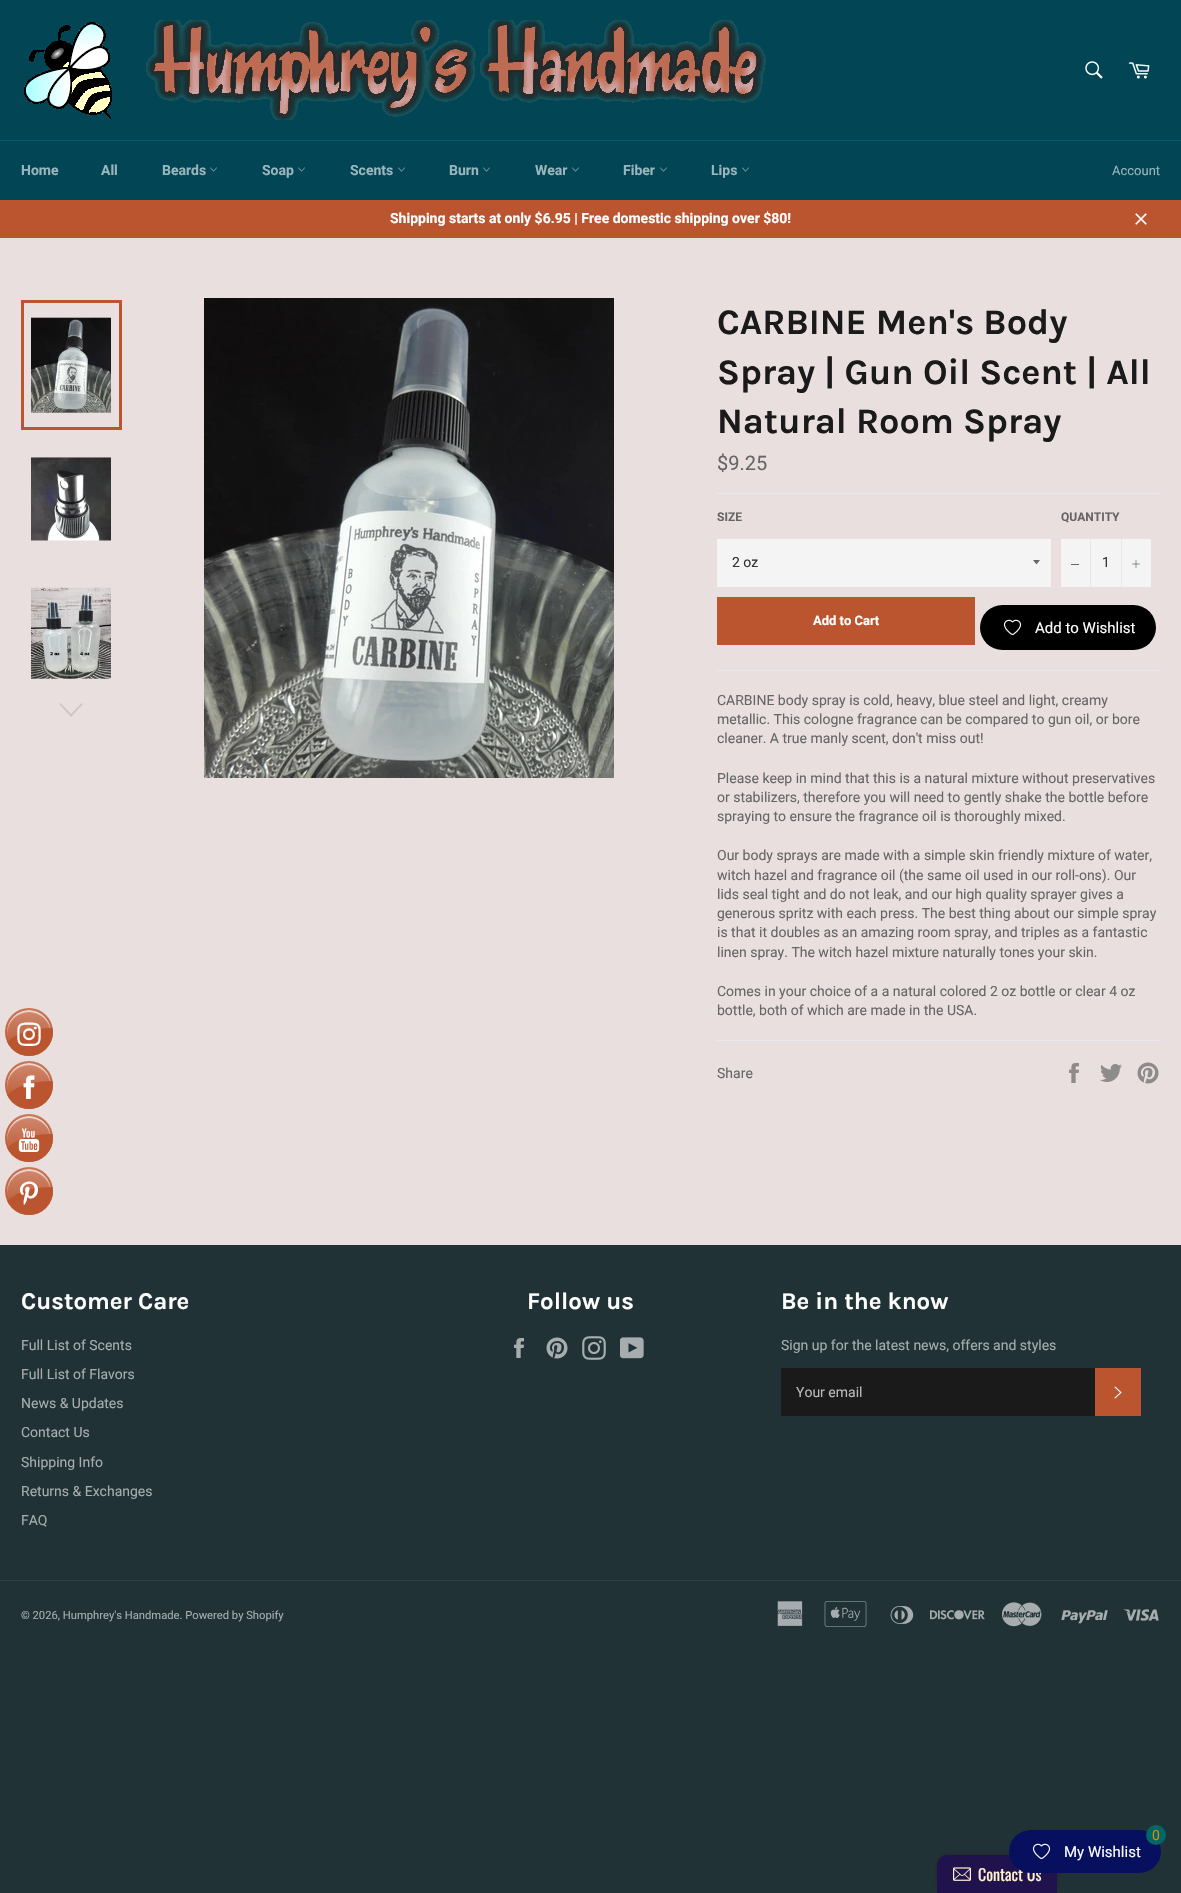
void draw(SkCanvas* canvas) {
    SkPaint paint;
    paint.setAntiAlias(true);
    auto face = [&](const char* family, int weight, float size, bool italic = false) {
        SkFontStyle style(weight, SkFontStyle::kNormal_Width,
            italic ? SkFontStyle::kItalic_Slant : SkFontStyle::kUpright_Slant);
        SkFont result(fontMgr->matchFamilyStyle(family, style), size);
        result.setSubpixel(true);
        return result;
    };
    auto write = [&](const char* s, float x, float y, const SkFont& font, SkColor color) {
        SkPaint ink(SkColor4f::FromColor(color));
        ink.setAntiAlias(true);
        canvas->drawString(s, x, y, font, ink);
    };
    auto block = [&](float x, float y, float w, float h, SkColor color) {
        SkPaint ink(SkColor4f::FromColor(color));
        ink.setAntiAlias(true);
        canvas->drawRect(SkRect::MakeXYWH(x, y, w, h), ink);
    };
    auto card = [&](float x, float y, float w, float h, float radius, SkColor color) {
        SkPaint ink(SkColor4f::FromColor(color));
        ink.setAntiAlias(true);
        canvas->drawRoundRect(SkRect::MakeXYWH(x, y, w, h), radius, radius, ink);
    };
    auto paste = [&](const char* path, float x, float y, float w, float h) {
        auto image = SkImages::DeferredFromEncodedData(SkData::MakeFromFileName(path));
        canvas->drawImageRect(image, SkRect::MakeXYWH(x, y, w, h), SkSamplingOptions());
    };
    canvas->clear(SkColorSetRGB(33, 50, 54));
    block(0, 0, 1181, 140, SkColorSetRGB(2, 70, 86));
    paste("pic1.png", 24, 20, 742, 100);
    paste("pic2.png", 1085, 61, 18, 18);
    paste("pic3.png", 1128, 62, 22, 17);
    block(0, 141, 1181, 59, SkColorSetRGB(2, 70, 86));
    block(0, 140, 1181, 1, SkColorSetRGB(3, 90, 111));
    auto kFont1 = face("Roboto", 700, 14);
    write("Home", 21, 175, kFont1, SkColorSetRGB(154, 181, 187));
    write("All", 101, 175, kFont1, SkColorSetRGB(154, 181, 187));
    write("Beards", 162, 175, kFont1, SkColorSetRGB(154, 181, 187));
    paste("pic4.png", 210, 167, 7, 5);
    write("Soap", 262, 175, kFont1, SkColorSetRGB(154, 181, 187));
    paste("pic4.png", 298, 167, 7, 5);
    write("Scents", 350, 175, kFont1, SkColorSetRGB(154, 181, 187));
    paste("pic4.png", 398, 167, 7, 5);
    write("Burn", 449, 175, kFont1, SkColorSetRGB(154, 181, 187));
    paste("pic4.png", 483, 167, 7, 5);
    write("Wear", 535, 175, kFont1, SkColorSetRGB(154, 181, 187));
    paste("pic4.png", 572, 167, 7, 5);
    write("Fiber", 623, 175, kFont1, SkColorSetRGB(154, 181, 187));
    paste("pic4.png", 660, 167, 7, 5);
    write("Lips", 711, 175, kFont1, SkColorSetRGB(154, 181, 187));
    paste("pic4.png", 742, 167, 7, 5);
    auto kFont2 = face("Roboto", 400, 13);
    write("Account", 1112, 175, kFont2, SkColorSetRGB(154, 181, 187));
    block(0, 200, 1181, 38, SkColorSetRGB(187, 85, 48));
    write("Shipping starts at only $6.95 | Free domestic shipping over $80!", 390, 223, kFont1, SK_ColorWHITE);
    paste("pic5.png", 1135, 213, 12, 12);
    block(0, 238, 1181, 1007, SkColorSetRGB(233, 223, 223));
    paste("pic6.png", 31, 317, 80, 96);
    paint.setStyle(SkPaint::kStroke_Style);
    paint.setStrokeWidth(3);
    paint.setColor(SkColorSetRGB(187, 85, 48));
    canvas->drawRect(SkRect::MakeXYWH(22.5f, 301.5f, 98, 127), paint);
    paste("pic7.png", 31, 457, 80, 84);
    paste("pic8.png", 31, 587, 80, 92);
    paint.setStyle(SkPaint::kFill_Style);
    paint.setColor(SkColorSetRGB(207, 199, 199));
    canvas->drawPath(SkPathBuilder().moveTo(81.5f, 703).lineTo(82.5f, 704.5f).lineTo(71, 717).lineTo(59.5f, 704.5f).lineTo(60.5f, 703).lineTo(71, 714).close().detach(), paint);
    paste("pic9.png", 204, 298, 410, 480);
    auto kFont3 = face("Karla", 700, 36);
    write("CARBINE Men's Body", 717, 334, kFont3, SkColorSetRGB(26, 26, 26));
    write("Spray | Gun Oil Scent | All", 717, 384, kFont3, SkColorSetRGB(26, 26, 26));
    write("Natural Room Spray", 717, 433, kFont3, SkColorSetRGB(26, 26, 26));
    auto kFont4 = face("Roboto", 400, 20);
    write("$9.25", 717, 470, kFont4, SkColorSetRGB(102, 102, 102));
    block(717, 493, 444, 1, SkColorSetRGB(230, 233, 244));
    auto kFont5 = face("Roboto", 700, 12);
    write("SIZE", 717, 521, kFont5, SkColorSetRGB(102, 102, 102));
    block(717, 539, 334, 48, SkColorSetRGB(244, 244, 244));
    paint.setColor(SkColorSetRGB(102, 102, 102));
    canvas->drawPath(SkPathBuilder().moveTo(1033, 560).cubicTo(1037.5f, 565.5f, 1035.5f, 565.5f, 1040, 560).close().detach(), paint);
    auto kFont6 = face("Roboto", 400, 14);
    write("2 oz", 732, 567, kFont6, SkColorSetRGB(51, 51, 51));
    write("QUANTITY", 1061, 521, kFont5, SkColorSetRGB(102, 102, 102));
    block(1061, 539, 90, 48, SkColorSetRGB(244, 244, 244));
    block(1090, 539, 1, 48, SkColorSetRGB(231, 231, 231));
    block(1071, 564, 8, 1, SkColorSetRGB(102, 102, 102));
    write("1", 1102, 567, kFont6, SkColorSetRGB(51, 51, 51));
    block(1121, 539, 1, 48, SkColorSetRGB(231, 231, 231));
    paste("pic10.png", 1132, 560, 8, 8);
    block(717, 597, 258, 48, SkColorSetRGB(187, 85, 48));
    auto kFont7 = face("Roboto", 700, 13);
    write("Add to Cart", 813, 625, kFont7, SK_ColorWHITE);
    card(980, 605, 176, 45, 22.5f, SK_ColorBLACK);
    paste("pic11.png", 1003, 619, 19, 16);
    auto kFont8 = face("Roboto", 400, 15);
    write("Add to Wishlist", 1035, 633, kFont8, SK_ColorWHITE);
    block(717, 670, 444, 1, SkColorSetRGB(230, 233, 244));
    write("CARBINE body spray is cold, heavy, blue steel and light, creamy", 717, 705, kFont6, SkColorSetRGB(102, 102, 102));
    write("metallic. This cologne fragrance can be compared to gun oil, or bore", 717, 724, kFont6, SkColorSetRGB(102, 102, 102));
    write("cleaner. A true manly scent, don't miss out!", 717, 743, kFont6, SkColorSetRGB(102, 102, 102));
    write("Please keep in mind that this is a natural mixture without preservatives", 717, 783, kFont6, SkColorSetRGB(102, 102, 102));
    write("or stabilizers, therefore you will need to gently shake the bottle before", 717, 802, kFont6, SkColorSetRGB(102, 102, 102));
    write("spraying to ensure the fragrance oil is thoroughly mixed.", 717, 821, kFont6, SkColorSetRGB(102, 102, 102));
    write("Our body sprays are made with a simple skin friendly mixture of water,", 717, 860, kFont6, SkColorSetRGB(102, 102, 102));
    write("witch hazel and fragrance oil (the same oil used in our roll-ons). Our", 717, 880, kFont6, SkColorSetRGB(102, 102, 102));
    write("lids seal tight and do not leak, and our high quality sprayer gives a", 717, 899, kFont6, SkColorSetRGB(102, 102, 102));
    write("generous spritz with each press. The best thing about our simple spray", 717, 918, kFont6, SkColorSetRGB(102, 102, 102));
    write("is that it doubles as an amazing room spray, and triples as a fantastic", 717, 937, kFont6, SkColorSetRGB(102, 102, 102));
    write("linen spray. The witch hazel mixture naturally tones your skin.", 717, 957, kFont6, SkColorSetRGB(102, 102, 102));
    write("Comes in your choice of a a natural colored 2 oz bottle or clear 4 oz", 717, 996, kFont6, SkColorSetRGB(102, 102, 102));
    write("bottle, both of which are made in the USA.", 717, 1015, kFont6, SkColorSetRGB(102, 102, 102));
    block(717, 1040, 444, 1, SkColorSetRGB(230, 233, 244));
    write("Share", 717, 1078, kFont6, SkColorSetRGB(102, 102, 102));
    paste("pic12.png", 1069, 1063, 10, 20);
    paste("pic13.png", 1100, 1064, 22, 18);
    paste("pic14.png", 1137, 1062, 22, 22);
    auto kFont9 = face("Karla", 700, 24);
    write("Customer Care", 21, 1309, kFont9, SK_ColorWHITE);
    write("Full List of Scents", 21, 1350, kFont6, SkColorSetRGB(166, 173, 175));
    write("Full List of Flavors", 21, 1379, kFont6, SkColorSetRGB(166, 173, 175));
    write("News & Updates", 21, 1408, kFont6, SkColorSetRGB(166, 173, 175));
    write("Contact Us", 21, 1437, kFont6, SkColorSetRGB(166, 173, 175));
    write("Shipping Info", 21, 1467, kFont6, SkColorSetRGB(166, 173, 175));
    write("Returns & Exchanges", 21, 1496, kFont6, SkColorSetRGB(166, 173, 175));
    write("FAQ", 21, 1525, kFont6, SkColorSetRGB(166, 173, 175));
    write("Follow us", 527, 1309, kFont9, SK_ColorWHITE);
    paste("pic15.png", 514, 1338, 10, 20);
    paste("pic16.png", 546, 1337, 22, 22);
    paste("pic17.png", 582, 1336, 24, 24);
    paste("pic18.png", 620, 1337, 24, 22);
    write("Be in the know", 781, 1309, kFont9, SK_ColorWHITE);
    write("Sign up for the latest news, offers and styles", 781, 1350, kFont6, SkColorSetRGB(166, 173, 175));
    block(781, 1368, 314, 48, SkColorSetRGB(26, 26, 26));
    write("Your email", 796, 1397, kFont6, SkColorSetRGB(186, 186, 186));
    block(1095, 1368, 46, 48, SkColorSetRGB(187, 85, 48));
    paste("pic19.png", 1114, 1386, 8, 13);
    block(0, 1580, 1181, 1, SkColorSetRGB(43, 65, 70));
    auto kFont10 = face("Roboto", 400, 11.2f);
    write("© 2026, Humphrey's Handmade. Powered by Shopify", 21, 1619, kFont10, SkColorSetRGB(166, 173, 175));
    paste("pic20.png", 777, 1601, 26, 25);
    paste("pic21.png", 824, 1601, 43, 26);
    paste("pic22.png", 890, 1606, 24, 18);
    paste("pic23.png", 930, 1610, 55, 10);
    paste("pic24.png", 1002, 1602, 40, 25);
    paste("pic25.png", 1061, 1610, 47, 14);
    paste("pic26.png", 1123, 1609, 36, 12);
    paste("pic27.png", 5, 1008, 48, 207);
    paint.setColor(SkColorSetARGB(51, 0, 0, 0));
    paint.setMaskFilter(SkMaskFilter::MakeBlur(kNormal_SkBlurStyle, 2.5f));
    canvas->drawRoundRect(SkRect::MakeXYWH(937, 1855, 120, 38), 10, 10, paint);
    paint.setMaskFilter(nullptr);
    paint.setColor(SkColorSetRGB(32, 18, 77));
    canvas->drawPath(SkPathBuilder().moveTo(947, 1855).lineTo(1047, 1855).cubicTo(1052.5f, 1855, 1057, 1859.5f, 1057, 1865).lineTo(1057, 1893).lineTo(937, 1893).lineTo(937, 1865).cubicTo(937, 1859.5f, 941.5f, 1855, 947, 1855).close().detach(), paint);
    auto kFont11 = face("Oswald", 400, 16);
    write("Contact Us", 978, 1881, kFont11, SkColorSetRGB(255, 242, 204));
    card(1009, 1830, 152, 43, 21.5f, SkColorSetRGB(6, 16, 94));
    paint.setColor(SkColorSetRGB(0, 102, 102));
    canvas->drawCircle(1156, 1835, 10, paint);
    write("0", 1152, 1840, kFont6, SkColorSetRGB(235, 133, 0));
    paste("pic28.png", 1032, 1843, 19, 16);
    write("My Wishlist", 1064, 1857, kFont8, SK_ColorWHITE);
    paste("pic29.png", 953, 1867, 18, 14);
}
